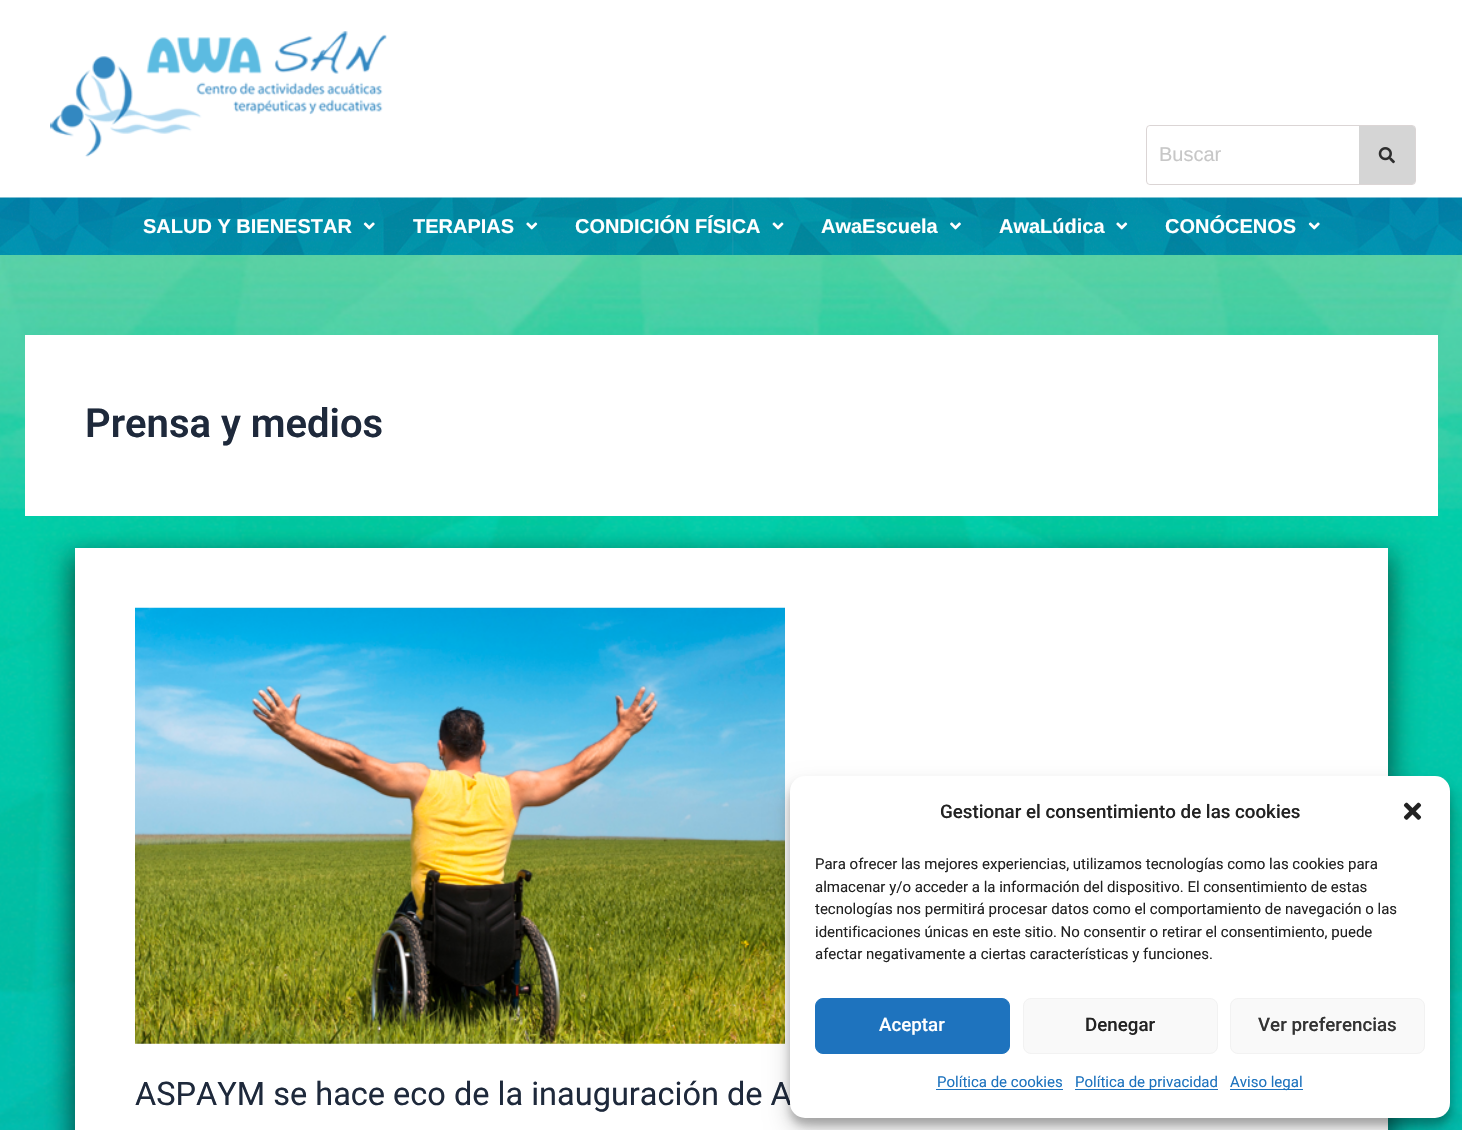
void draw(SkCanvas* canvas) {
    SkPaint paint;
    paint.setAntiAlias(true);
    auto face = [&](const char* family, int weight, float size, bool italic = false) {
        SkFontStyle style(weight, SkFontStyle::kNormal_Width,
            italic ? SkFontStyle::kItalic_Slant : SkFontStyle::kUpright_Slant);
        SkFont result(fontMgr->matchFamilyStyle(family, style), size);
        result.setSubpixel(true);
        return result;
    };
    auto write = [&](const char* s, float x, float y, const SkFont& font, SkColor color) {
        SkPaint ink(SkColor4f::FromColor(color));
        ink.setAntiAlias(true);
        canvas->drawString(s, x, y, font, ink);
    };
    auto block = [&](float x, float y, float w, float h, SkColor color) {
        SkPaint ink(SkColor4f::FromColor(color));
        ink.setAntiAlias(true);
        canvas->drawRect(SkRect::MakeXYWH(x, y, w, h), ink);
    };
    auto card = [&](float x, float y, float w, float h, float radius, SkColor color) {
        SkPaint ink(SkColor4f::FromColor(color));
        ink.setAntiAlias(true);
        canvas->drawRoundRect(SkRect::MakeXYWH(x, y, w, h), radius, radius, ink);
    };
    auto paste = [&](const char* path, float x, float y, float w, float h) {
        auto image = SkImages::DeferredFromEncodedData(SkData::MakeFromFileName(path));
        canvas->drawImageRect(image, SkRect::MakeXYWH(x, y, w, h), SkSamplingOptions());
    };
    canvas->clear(SK_ColorWHITE);
    paste("pic1.png", 0, 255, 1462, 875);
    paste("pic2.png", 50, 31, 337, 126);
    paint.setStyle(SkPaint::kStroke_Style);
    paint.setStrokeWidth(1);
    paint.setColor(SkColorSetRGB(219, 213, 213));
    canvas->drawRoundRect(SkRect::MakeXYWH(1146.5f, 125.5f, 269, 59), 3.5f, 3.5f, paint);
    paint.setStyle(SkPaint::kFill_Style);
    paint.setColor(SK_ColorWHITE);
    canvas->drawPath(SkPathBuilder().moveTo(1150.5f, 126).lineTo(1359, 126).lineTo(1359, 184).lineTo(1150.5f, 184).cubicTo(1149, 184, 1148, 183, 1148, 181.5f).lineTo(1148, 128.5f).cubicTo(1148, 127, 1149, 126, 1150.5f, 126).close().detach(), paint);
    auto kFont1 = face("Liberation Sans", 400, 20);
    write("Buscar", 1159, 161, kFont1, SkColorSetRGB(199, 199, 199));
    paint.setColor(SkColorSetRGB(213, 213, 213));
    canvas->drawPath(SkPathBuilder().moveTo(1359, 126).lineTo(1412.5f, 126).cubicTo(1414, 126, 1415, 127, 1415, 128.5f).lineTo(1415, 181.5f).cubicTo(1415, 183, 1414, 184, 1412.5f, 184).lineTo(1359, 184).close().detach(), paint);
    paste("pic3.png", 1378, 147, 17, 17);
    paste("pic4.png", 0, 197, 1462, 58);
    auto kFont2 = face("Liberation Sans", 700, 20);
    write("SALUD Y BIENESTAR", 143, 233, kFont2, SK_ColorWHITE);
    paste("pic5.png", 363, 222, 12, 8);
    write("TERAPIAS", 413, 233, kFont2, SK_ColorWHITE);
    paste("pic6.png", 526, 222, 12, 8);
    write("CONDICIÓN FÍSICA", 575, 233, kFont2, SK_ColorWHITE);
    paste("pic7.png", 772, 222, 12, 8);
    write("AwaEscuela", 821, 233, kFont2, SK_ColorWHITE);
    paste("pic8.png", 950, 222, 11, 8);
    write("AwaLúdica", 999, 233, kFont2, SK_ColorWHITE);
    paste("pic9.png", 1116, 222, 12, 8);
    write("CONÓCENOS", 1165, 233, kFont2, SK_ColorWHITE);
    paste("pic10.png", 1308, 222, 12, 8);
    block(25, 335, 1413, 181, SK_ColorWHITE);
    auto kFont3 = face("Roboto", 600, 40);
    write("Prensa y medios", 85, 437, kFont3, SkColorSetRGB(30, 41, 59));
    paint.setColor(SkColorSetARGB(143, 0, 0, 0));
    paint.setMaskFilter(SkMaskFilter::MakeBlur(kNormal_SkBlurStyle, 12.5f));
    canvas->drawRect(SkRect::MakeXYWH(71, 556, 1320, 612), paint);
    paint.setMaskFilter(nullptr);
    block(75, 548, 1313, 582, SK_ColorWHITE);
    paste("pic11.png", 135, 607, 650, 437);
    auto kFont4 = face("Roboto", 400, 32.5f);
    write("ASPAYM se hace eco de la inauguración de A", 135, 1105, kFont4, SkColorSetRGB(30, 41, 59));
    paint.setColor(SkColorSetARGB(59, 0, 0, 0));
    paint.setMaskFilter(SkMaskFilter::MakeBlur(kNormal_SkBlurStyle, 4));
    canvas->drawRoundRect(SkRect::MakeXYWH(790, 784, 660, 341), 15, 15, paint);
    paint.setMaskFilter(nullptr);
    paint.setColor(SkColorSetARGB(48, 0, 0, 0));
    paint.setMaskFilter(SkMaskFilter::MakeBlur(kNormal_SkBlurStyle, 12.5f));
    canvas->drawRoundRect(SkRect::MakeXYWH(790, 789, 660, 341), 15, 15, paint);
    paint.setMaskFilter(nullptr);
    card(790, 776, 660, 342, 15, SK_ColorWHITE);
    auto kFont5 = face("Roboto", 500, 18.75f);
    write("Gestionar el consentimiento de las cookies", 940, 818, kFont5, SkColorSetRGB(34, 34, 34));
    paste("pic12.png", 1403, 802, 19, 18);
    auto kFont6 = face("Roboto", 400, 15);
    write("Para ofrecer las mejores experiencias, utilizamos tecnologías como las cookies para", 815, 869, kFont6, SkColorSetRGB(34, 34, 34));
    write("almacenar y/o acceder a la información del dispositivo. El consentimiento de estas", 815, 892, kFont6, SkColorSetRGB(34, 34, 34));
    write("tecnologías nos permitirá procesar datos como el comportamiento de navegación o las", 815, 914, kFont6, SkColorSetRGB(34, 34, 34));
    write("identificaciones únicas en este sitio. No consentir o retirar el consentimiento, puede", 815, 937, kFont6, SkColorSetRGB(34, 34, 34));
    write("afectar negativamente a ciertas características y funciones.", 815, 959, kFont6, SkColorSetRGB(34, 34, 34));
    paint.setColor(SkColorSetRGB(30, 115, 190));
    canvas->drawRoundRect(SkRect::MakeXYWH(815.5f, 998.5f, 194, 55), 7.5f, 7.5f, paint);
    paint.setStyle(SkPaint::kStroke_Style);
    canvas->drawRoundRect(SkRect::MakeXYWH(815.5f, 998.5f, 194, 55), 7.5f, 7.5f, paint);
    write("Aceptar", 879, 1031, kFont5, SK_ColorWHITE);
    paint.setStyle(SkPaint::kFill_Style);
    paint.setColor(SkColorSetRGB(249, 249, 249));
    canvas->drawRoundRect(SkRect::MakeXYWH(1023.5f, 998.5f, 194, 55), 7.5f, 7.5f, paint);
    paint.setStyle(SkPaint::kStroke_Style);
    paint.setColor(SkColorSetRGB(242, 242, 242));
    canvas->drawRoundRect(SkRect::MakeXYWH(1023.5f, 998.5f, 194, 55), 7.5f, 7.5f, paint);
    write("Denegar", 1085, 1031, kFont5, SkColorSetRGB(34, 34, 34));
    paint.setStyle(SkPaint::kFill_Style);
    paint.setColor(SkColorSetRGB(249, 249, 249));
    canvas->drawRoundRect(SkRect::MakeXYWH(1230.5f, 998.5f, 194, 55), 7.5f, 7.5f, paint);
    paint.setStyle(SkPaint::kStroke_Style);
    paint.setColor(SkColorSetRGB(242, 242, 242));
    canvas->drawRoundRect(SkRect::MakeXYWH(1230.5f, 998.5f, 194, 55), 7.5f, 7.5f, paint);
    write("Ver preferencias", 1258, 1031, kFont5, SkColorSetRGB(51, 51, 51));
    write("Política de cookies", 937, 1087, kFont6, SkColorSetRGB(30, 115, 190));
    block(936, 1089, 127, 1, SkColorSetRGB(30, 115, 190));
    block(1075, 1089, 143, 1, SkColorSetRGB(30, 115, 190));
    write("Política de privacidad", 1075, 1087, kFont6, SkColorSetRGB(30, 115, 190));
    block(1230, 1089, 73, 1, SkColorSetRGB(30, 115, 190));
    write("Aviso legal", 1230, 1087, kFont6, SkColorSetRGB(30, 115, 190));
}
